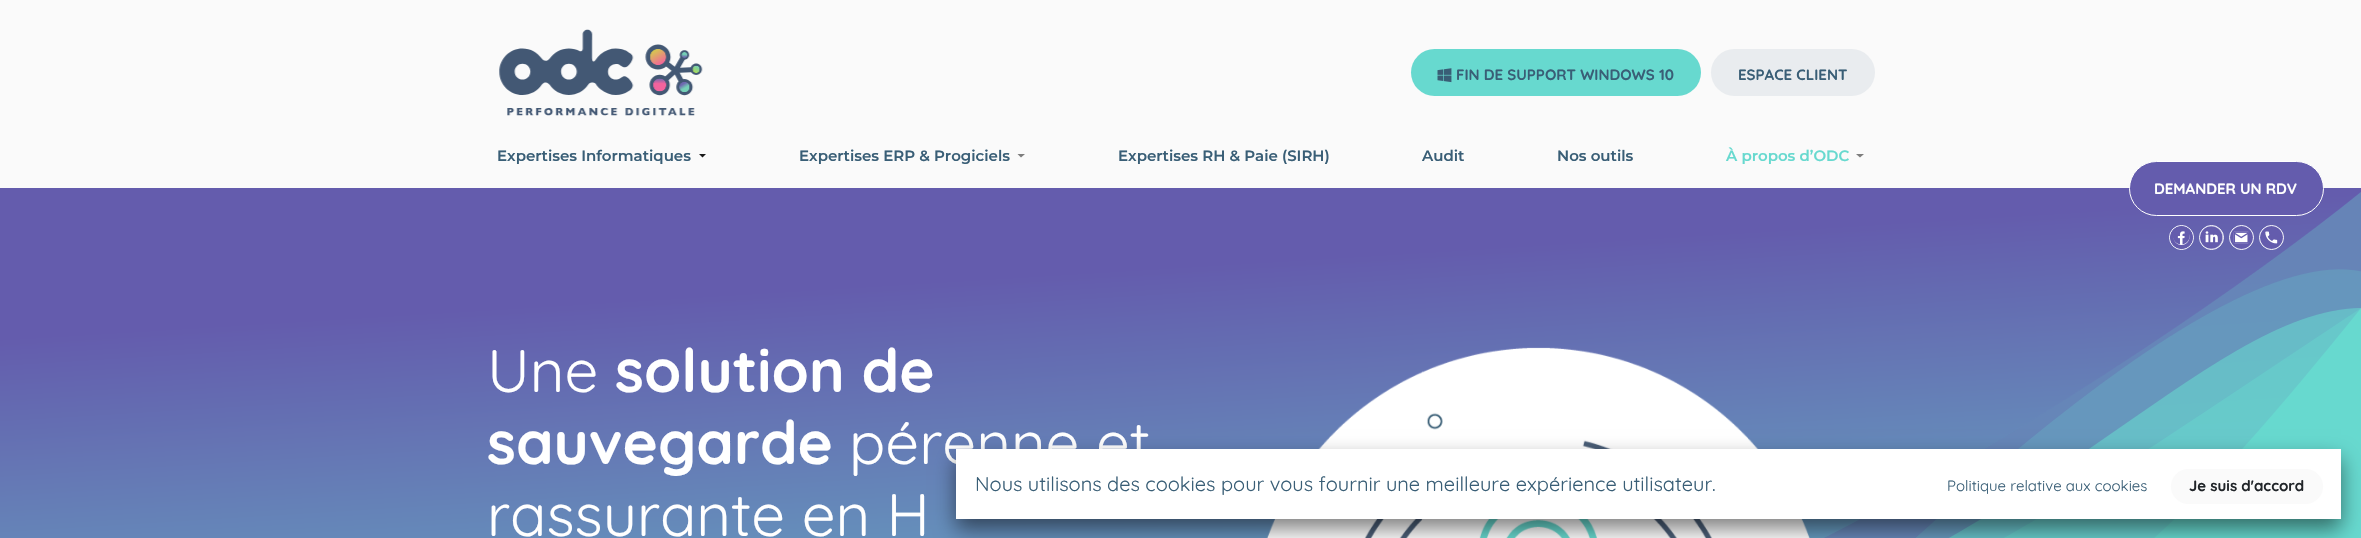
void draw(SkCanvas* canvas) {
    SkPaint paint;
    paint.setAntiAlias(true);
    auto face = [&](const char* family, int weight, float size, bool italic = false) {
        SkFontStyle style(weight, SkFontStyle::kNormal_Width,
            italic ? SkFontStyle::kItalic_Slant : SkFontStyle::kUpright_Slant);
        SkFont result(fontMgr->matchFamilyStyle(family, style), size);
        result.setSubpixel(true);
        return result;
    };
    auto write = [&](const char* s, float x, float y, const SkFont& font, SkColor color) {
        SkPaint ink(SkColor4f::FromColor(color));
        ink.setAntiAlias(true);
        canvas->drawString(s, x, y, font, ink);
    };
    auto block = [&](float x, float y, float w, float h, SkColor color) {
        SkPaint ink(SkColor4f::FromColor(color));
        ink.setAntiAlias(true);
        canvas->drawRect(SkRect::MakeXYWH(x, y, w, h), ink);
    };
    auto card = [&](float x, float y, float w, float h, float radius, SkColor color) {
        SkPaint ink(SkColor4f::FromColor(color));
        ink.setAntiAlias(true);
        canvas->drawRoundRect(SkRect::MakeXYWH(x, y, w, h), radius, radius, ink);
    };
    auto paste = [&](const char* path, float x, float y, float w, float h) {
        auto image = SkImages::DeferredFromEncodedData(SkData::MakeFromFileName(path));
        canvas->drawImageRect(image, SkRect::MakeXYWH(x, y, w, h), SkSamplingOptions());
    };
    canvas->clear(SkColorSetRGB(103, 217, 207));
    block(0, 0, 2361, 188, SkColorSetRGB(250, 250, 250));
    paste("pic1.png", 499, 29, 204, 87);
    card(1411, 49, 290, 47, 23.5f, SkColorSetRGB(103, 217, 207));
    paste("pic2.png", 1437, 68, 15, 15);
    auto kFont1 = face("Quicksand", 700, 15);
    write("FIN DE SUPPORT WINDOWS 10", 1456, 80, kFont1, SkColorSetRGB(57, 94, 118));
    card(1711, 49, 164, 47, 23.5f, SkColorSetRGB(233, 236, 239));
    write("ESPACE CLIENT", 1738, 80, kFont1, SkColorSetRGB(57, 94, 118));
    auto kFont2 = face("Montserrat", 600, 15);
    write("Expertises Informatiques", 497, 161, kFont2, SkColorSetRGB(57, 94, 118));
    paint.setColor(SkColorSetRGB(25, 25, 25));
    canvas->drawPath(SkPathBuilder().moveTo(699, 154).lineTo(706, 154).lineTo(702.5f, 157.5f).close().detach(), paint);
    write("Expertises ERP & Progiciels", 799, 161, kFont2, SkColorSetRGB(57, 94, 118));
    paint.setColor(SkColorSetRGB(125, 125, 125));
    canvas->drawPath(SkPathBuilder().moveTo(1017.5f, 154).lineTo(1025, 154).lineTo(1021, 157.5f).close().detach(), paint);
    write("Expertises RH & Paie (SIRH)", 1118, 161, kFont2, SkColorSetRGB(57, 94, 118));
    write("Audit", 1422, 161, kFont2, SkColorSetRGB(57, 94, 118));
    write("Nos outils", 1557, 161, kFont2, SkColorSetRGB(57, 94, 118));
    write("À propos d’ODC", 1726, 161, kFont2, SkColorSetRGB(103, 217, 207));
    canvas->drawPath(SkPathBuilder().moveTo(1856, 154).lineTo(1864, 154).lineTo(1860, 157.5f).close().detach(), paint);
    paste("pic3.png", 0, 188, 2361, 350);
    auto kFont3 = face("Quicksand", 400, 60);
    write("Une", 487, 392, kFont3, SK_ColorWHITE);
    auto kFont4 = face("Quicksand", 700, 60);
    write("solution de", 615, 392, kFont4, SK_ColorWHITE);
    write("sauvegarde", 487, 464, kFont4, SK_ColorWHITE);
    write("pérenne et", 849, 464, kFont3, SK_ColorWHITE);
    write("rassurante en H", 487, 536, kFont3, SK_ColorWHITE);
    paste("pic4.png", 1266, 347, 544, 191);
    paint.setColor(SkColorSetARGB(128, 0, 0, 0));
    paint.setMaskFilter(SkMaskFilter::MakeBlur(kNormal_SkBlurStyle, 10));
    canvas->drawRect(SkRect::MakeXYWH(956, 459, 1385, 70), paint);
    paint.setMaskFilter(nullptr);
    block(956, 449, 1385, 70, SK_ColorWHITE);
    auto kFont5 = face("Quicksand", 400, 20);
    write("Nous utilisons des cookies pour vous fournir une meilleure expérience utilisateur.", 975, 491, kFont5, SkColorSetRGB(57, 94, 118));
    auto kFont6 = face("Quicksand", 400, 15);
    write("Politique relative aux cookies", 1947, 491, kFont6, SkColorSetRGB(57, 94, 118));
    card(2171, 469, 152, 35, 17.5f, SkColorSetRGB(250, 250, 250));
    write("Je suis d'accord", 2189, 491, kFont1, SkColorSetRGB(33, 37, 41));
    paint.setColor(SkColorSetRGB(100, 92, 173));
    canvas->drawRoundRect(SkRect::MakeXYWH(2129.5f, 161.5f, 194, 54), 27, 27, paint);
    paint.setStyle(SkPaint::kStroke_Style);
    paint.setStrokeWidth(1);
    paint.setColor(SK_ColorWHITE);
    canvas->drawRoundRect(SkRect::MakeXYWH(2129.5f, 161.5f, 194, 54), 27, 27, paint);
    write("DEMANDER UN RDV", 2154, 194, kFont1, SK_ColorWHITE);
    canvas->drawCircle(2181.5f, 237.5f, 12, paint);
    paste("pic5.png", 2170, 226, 23, 23);
    canvas->drawCircle(2211.5f, 237.5f, 12, paint);
    paste("pic6.png", 2200, 226, 23, 23);
    canvas->drawCircle(2241.5f, 237.5f, 12, paint);
    paste("pic7.png", 2230, 226, 23, 23);
    canvas->drawCircle(2271.5f, 237.5f, 12, paint);
    paste("pic8.png", 2260, 226, 23, 23);
}
